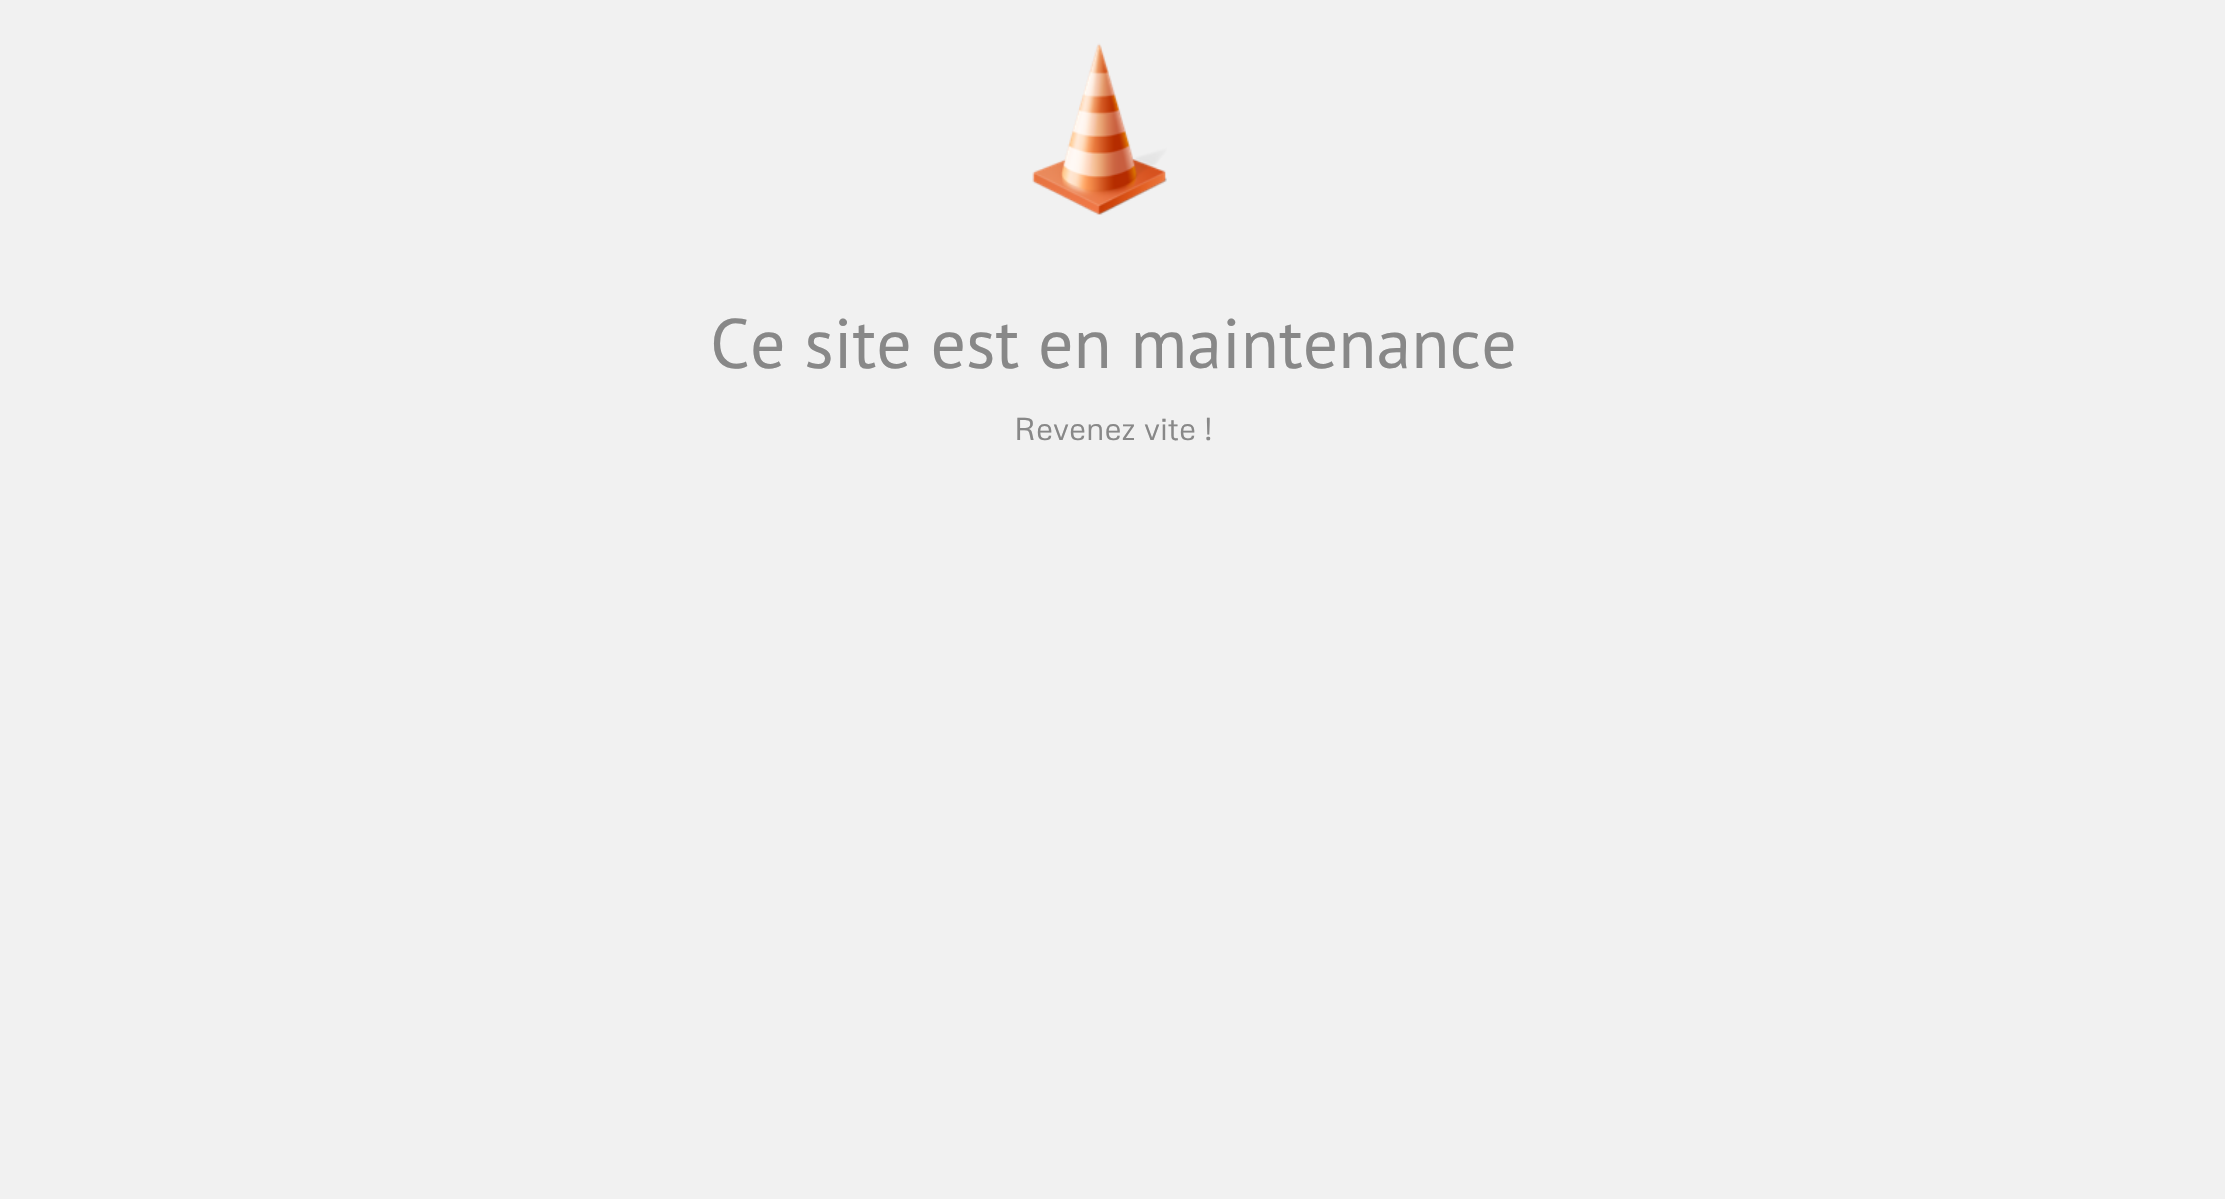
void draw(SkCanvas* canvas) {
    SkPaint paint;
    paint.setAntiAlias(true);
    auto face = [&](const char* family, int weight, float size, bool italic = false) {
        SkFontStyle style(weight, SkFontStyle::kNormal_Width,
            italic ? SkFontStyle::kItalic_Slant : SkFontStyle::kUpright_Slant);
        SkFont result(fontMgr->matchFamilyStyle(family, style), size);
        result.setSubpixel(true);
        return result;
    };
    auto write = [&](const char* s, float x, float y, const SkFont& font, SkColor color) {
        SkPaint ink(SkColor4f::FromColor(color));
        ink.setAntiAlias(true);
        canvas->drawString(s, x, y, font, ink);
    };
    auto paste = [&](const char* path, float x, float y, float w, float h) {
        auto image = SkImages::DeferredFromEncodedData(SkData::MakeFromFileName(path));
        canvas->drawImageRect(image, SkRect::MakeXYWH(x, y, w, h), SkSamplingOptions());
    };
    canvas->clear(SkColorSetRGB(241, 241, 241));
    paste("pic1.png", 1032, 43, 135, 172);
    auto kFont1 = face("PT Sans", 400, 70);
    write("Ce site est en maintenance", 710, 368, kFont1, SkColorSetRGB(136, 136, 136));
    auto kFont2 = face("Metrophobic", 400, 31.5f);
    write("Revenez vite !", 1014, 440, kFont2, SkColorSetRGB(136, 136, 136));
}
